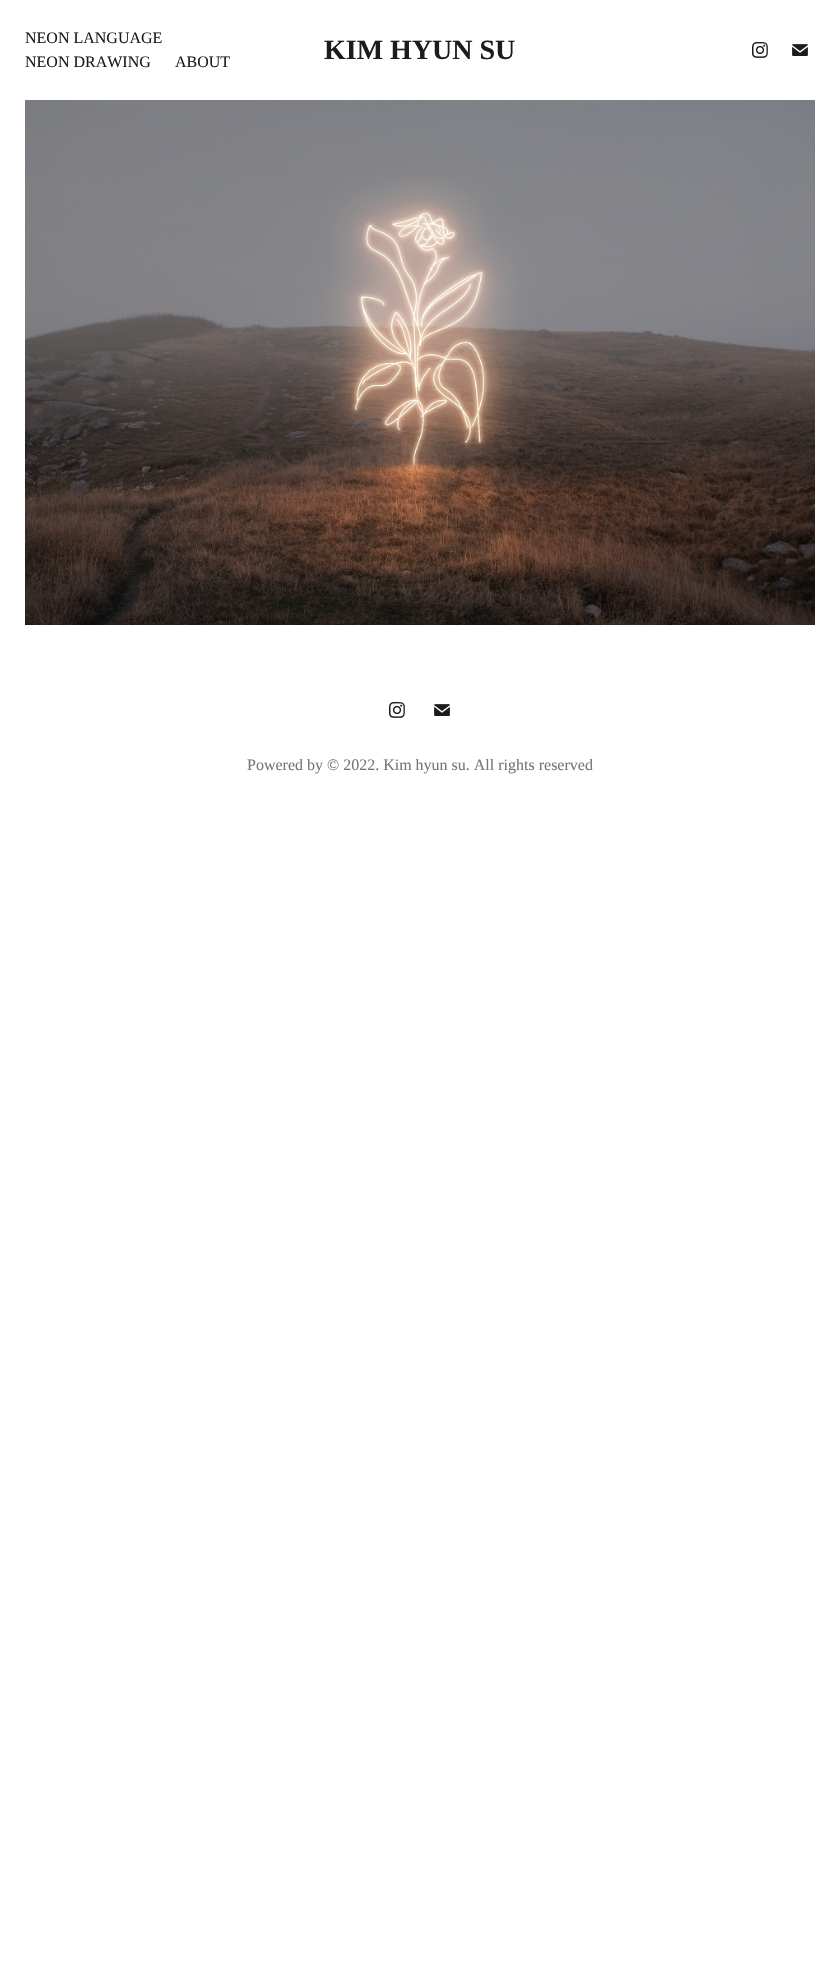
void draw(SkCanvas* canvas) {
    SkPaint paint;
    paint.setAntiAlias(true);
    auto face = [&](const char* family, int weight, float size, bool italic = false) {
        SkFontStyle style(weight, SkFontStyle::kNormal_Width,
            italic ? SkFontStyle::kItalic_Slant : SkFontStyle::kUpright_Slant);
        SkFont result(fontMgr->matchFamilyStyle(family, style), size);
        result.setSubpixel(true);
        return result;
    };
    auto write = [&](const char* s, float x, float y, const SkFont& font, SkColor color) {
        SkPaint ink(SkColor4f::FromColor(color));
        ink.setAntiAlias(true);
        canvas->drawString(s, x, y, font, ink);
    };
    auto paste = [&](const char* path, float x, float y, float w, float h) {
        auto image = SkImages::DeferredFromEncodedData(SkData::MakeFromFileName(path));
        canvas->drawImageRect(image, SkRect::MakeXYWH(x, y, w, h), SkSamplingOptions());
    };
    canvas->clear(SK_ColorWHITE);
    auto kFont1 = face("Liberation Serif", 400, 16);
    write("NEON LANGUAGE", 25, 43, kFont1, SkColorSetRGB(28, 28, 28));
    write("NEON DRAWING", 25, 67, kFont1, SkColorSetRGB(28, 28, 28));
    write("ABOUT", 175, 67, kFont1, SkColorSetRGB(28, 28, 28));
    auto kFont2 = face("Liberation Serif", 700, 28);
    write("KIM HYUN SU", 324, 59, kFont2, SkColorSetRGB(28, 28, 28));
    paste("pic1.png", 752, 42, 16, 16);
    paste("pic2.png", 792, 44, 16, 12);
    paste("pic3.png", 25, 100, 790, 525);
    paste("pic1.png", 389, 702, 16, 16);
    paste("pic2.png", 434, 704, 16, 12);
    write("Powered by © 2022. Kim hyun su. All rights reserved", 247, 770, kFont1, SkColorSetRGB(117, 117, 117));
}
